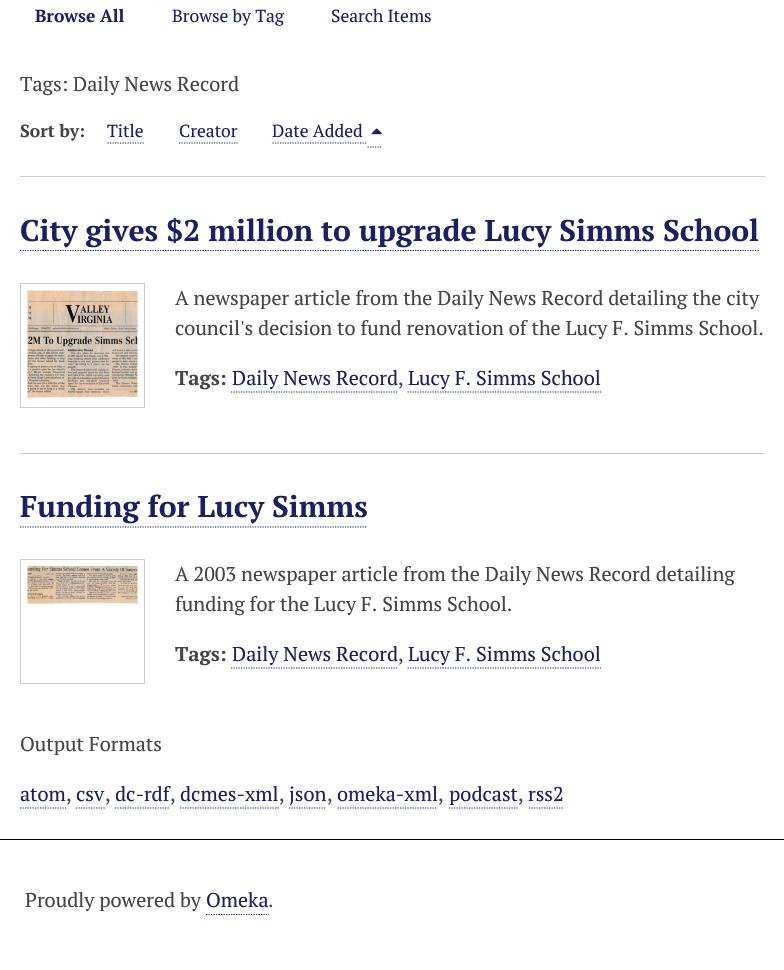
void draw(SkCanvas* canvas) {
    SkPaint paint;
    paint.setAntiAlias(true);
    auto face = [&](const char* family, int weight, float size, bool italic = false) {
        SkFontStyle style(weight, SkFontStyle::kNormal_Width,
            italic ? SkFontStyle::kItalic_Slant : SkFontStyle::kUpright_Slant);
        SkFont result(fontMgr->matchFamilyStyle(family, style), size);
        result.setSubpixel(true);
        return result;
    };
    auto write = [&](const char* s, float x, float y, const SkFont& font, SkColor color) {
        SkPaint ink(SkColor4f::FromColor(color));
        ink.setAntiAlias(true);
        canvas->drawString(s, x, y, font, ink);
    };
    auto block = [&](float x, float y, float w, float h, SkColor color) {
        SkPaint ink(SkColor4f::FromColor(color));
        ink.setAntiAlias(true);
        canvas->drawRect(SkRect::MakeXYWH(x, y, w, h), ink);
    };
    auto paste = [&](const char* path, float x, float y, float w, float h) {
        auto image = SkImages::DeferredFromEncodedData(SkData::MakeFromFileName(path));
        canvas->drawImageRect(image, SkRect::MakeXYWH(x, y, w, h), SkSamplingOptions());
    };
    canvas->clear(SK_ColorWHITE);
    auto kFont1 = face("PT Serif", 700, 17.5f);
    write("Browse All", 35, 22, kFont1, SkColorSetRGB(27, 32, 98));
    auto kFont2 = face("PT Serif", 400, 17.5f);
    write("Browse by Tag", 172, 22, kFont2, SkColorSetRGB(27, 32, 98));
    write("Search Items", 331, 22, kFont2, SkColorSetRGB(27, 32, 98));
    auto kFont3 = face("PT Serif", 400, 20);
    write("Tags: Daily News Record", 20, 91, kFont3, SkColorSetRGB(68, 68, 68));
    write("Sort by:", 20, 137, kFont1, SkColorSetRGB(68, 68, 68));
    write("Title", 107, 137, kFont2, SkColorSetRGB(27, 32, 98));
    paint.setStyle(SkPaint::kStroke_Style);
    paint.setStrokeWidth(1.2f);
    paint.setColor(SkColorSetRGB(27, 32, 98));
    paint.setPathEffect(SkDashPathEffect::Make({{1.25f, 1.25f}}, 0));
    canvas->drawPath(SkPathBuilder().moveTo(107.5f, 143).lineTo(144, 143).detach(), paint);
    paint.setPathEffect(nullptr);
    write("Creator", 179, 137, kFont2, SkColorSetRGB(27, 32, 98));
    paint.setPathEffect(SkDashPathEffect::Make({{1.25f, 1.25f}}, 0));
    canvas->drawPath(SkPathBuilder().moveTo(179, 143).lineTo(237.5f, 143).detach(), paint);
    paint.setPathEffect(nullptr);
    paint.setPathEffect(SkDashPathEffect::Make({{1.25f, 1.25f}}, 0));
    canvas->drawPath(SkPathBuilder().moveTo(272.5f, 143).lineTo(367.5f, 143).detach(), paint);
    paint.setPathEffect(nullptr);
    paint.setPathEffect(SkDashPathEffect::Make({{1.25f, 1.25f}}, 0));
    canvas->drawPath(SkPathBuilder().moveTo(367.5f, 147).lineTo(382.5f, 147).detach(), paint);
    paint.setPathEffect(nullptr);
    write("Date Added", 272, 137, kFont2, SkColorSetRGB(27, 32, 98));
    paste("pic1.png", 371, 128, 11, 7);
    block(20, 176, 745, 1, SkColorSetRGB(204, 204, 204));
    auto kFont4 = face("PT Serif", 700, 30);
    write("City gives $2 million to upgrade Lucy Simms School", 20, 241, kFont4, SkColorSetRGB(27, 32, 98));
    paint.setPathEffect(SkDashPathEffect::Make({{1.25f, 1.25f}}, 0));
    canvas->drawPath(SkPathBuilder().moveTo(20, 250.5f).lineTo(759, 250.5f).detach(), paint);
    paint.setPathEffect(nullptr);
    paint.setStrokeWidth(1);
    paint.setColor(SkColorSetRGB(204, 204, 204));
    canvas->drawRect(SkRect::MakeXYWH(20.5f, 283.5f, 124, 124), paint);
    paste("pic2.png", 27, 290, 111, 110);
    write("A newspaper article from the Daily News Record detailing the city", 175, 305, kFont3, SkColorSetRGB(68, 68, 68));
    write("council's decision to fund renovation of the Lucy F. Simms School.", 175, 335, kFont3, SkColorSetRGB(68, 68, 68));
    auto kFont5 = face("PT Serif", 700, 20);
    write("Tags:", 175, 385, kFont5, SkColorSetRGB(68, 68, 68));
    write("Daily News Record", 232, 385, kFont3, SkColorSetRGB(27, 32, 98));
    paint.setStrokeWidth(1.2f);
    paint.setColor(SkColorSetRGB(27, 32, 98));
    paint.setPathEffect(SkDashPathEffect::Make({{1.25f, 1.25f}}, 0));
    canvas->drawPath(SkPathBuilder().moveTo(231, 392).lineTo(397.5f, 392).detach(), paint);
    paint.setPathEffect(nullptr);
    write(",", 398, 385, kFont3, SkColorSetRGB(68, 68, 68));
    write("Lucy F. Simms School", 408, 385, kFont3, SkColorSetRGB(27, 32, 98));
    paint.setPathEffect(SkDashPathEffect::Make({{1.25f, 1.25f}}, 0));
    canvas->drawPath(SkPathBuilder().moveTo(407.5f, 392).lineTo(601, 392).detach(), paint);
    paint.setPathEffect(nullptr);
    block(20, 453, 745, 1, SkColorSetRGB(204, 204, 204));
    write("Funding for Lucy Simms", 20, 517, kFont4, SkColorSetRGB(27, 32, 98));
    paint.setPathEffect(SkDashPathEffect::Make({{1.25f, 1.25f}}, 0));
    canvas->drawPath(SkPathBuilder().moveTo(20, 527).lineTo(367.5f, 527).detach(), paint);
    paint.setPathEffect(nullptr);
    paint.setStrokeWidth(1);
    paint.setColor(SkColorSetRGB(204, 204, 204));
    canvas->drawRect(SkRect::MakeXYWH(20.5f, 559.5f, 124, 124), paint);
    paste("pic3.png", 27, 566, 111, 39);
    write("A 2003 newspaper article from the Daily News Record detailing", 175, 581, kFont3, SkColorSetRGB(68, 68, 68));
    write("funding for the Lucy F. Simms School.", 175, 611, kFont3, SkColorSetRGB(68, 68, 68));
    write("Tags:", 175, 661, kFont5, SkColorSetRGB(68, 68, 68));
    write("Daily News Record", 232, 661, kFont3, SkColorSetRGB(27, 32, 98));
    paint.setStrokeWidth(1.2f);
    paint.setColor(SkColorSetRGB(27, 32, 98));
    paint.setPathEffect(SkDashPathEffect::Make({{1.25f, 1.25f}}, 0));
    canvas->drawPath(SkPathBuilder().moveTo(231, 668).lineTo(397.5f, 668).detach(), paint);
    paint.setPathEffect(nullptr);
    write(",", 398, 661, kFont3, SkColorSetRGB(68, 68, 68));
    write("Lucy F. Simms School", 408, 661, kFont3, SkColorSetRGB(27, 32, 98));
    paint.setPathEffect(SkDashPathEffect::Make({{1.25f, 1.25f}}, 0));
    canvas->drawPath(SkPathBuilder().moveTo(407.5f, 668).lineTo(601, 668).detach(), paint);
    paint.setPathEffect(nullptr);
    write("Output Formats", 20, 751, kFont3, SkColorSetRGB(68, 68, 68));
    write("atom", 20, 801, kFont3, SkColorSetRGB(27, 32, 98));
    paint.setPathEffect(SkDashPathEffect::Make({{1.25f, 1.25f}}, 0));
    canvas->drawPath(SkPathBuilder().moveTo(20, 808).lineTo(66, 808).detach(), paint);
    paint.setPathEffect(nullptr);
    write(",", 66, 801, kFont3, SkColorSetRGB(68, 68, 68));
    write("csv", 76, 801, kFont3, SkColorSetRGB(27, 32, 98));
    paint.setPathEffect(SkDashPathEffect::Make({{1.25f, 1.25f}}, 0));
    canvas->drawPath(SkPathBuilder().moveTo(76, 808).lineTo(105, 808).detach(), paint);
    paint.setPathEffect(nullptr);
    write(",", 105, 801, kFont3, SkColorSetRGB(68, 68, 68));
    write("dc-rdf", 115, 801, kFont3, SkColorSetRGB(27, 32, 98));
    paint.setPathEffect(SkDashPathEffect::Make({{1.25f, 1.25f}}, 0));
    canvas->drawPath(SkPathBuilder().moveTo(115, 808).lineTo(170, 808).detach(), paint);
    paint.setPathEffect(nullptr);
    write(",", 170, 801, kFont3, SkColorSetRGB(68, 68, 68));
    write("dcmes-xml", 180, 801, kFont3, SkColorSetRGB(27, 32, 98));
    paint.setPathEffect(SkDashPathEffect::Make({{1.25f, 1.25f}}, 0));
    canvas->drawPath(SkPathBuilder().moveTo(180, 808).lineTo(279, 808).detach(), paint);
    paint.setPathEffect(nullptr);
    write(",", 279, 801, kFont3, SkColorSetRGB(68, 68, 68));
    write("json", 289, 801, kFont3, SkColorSetRGB(27, 32, 98));
    paint.setPathEffect(SkDashPathEffect::Make({{1.25f, 1.25f}}, 0));
    canvas->drawPath(SkPathBuilder().moveTo(289, 808).lineTo(326, 808).detach(), paint);
    paint.setPathEffect(nullptr);
    write(",", 327, 801, kFont3, SkColorSetRGB(68, 68, 68));
    write("omeka-xml", 337, 801, kFont3, SkColorSetRGB(27, 32, 98));
    paint.setPathEffect(SkDashPathEffect::Make({{1.25f, 1.25f}}, 0));
    canvas->drawPath(SkPathBuilder().moveTo(337.5f, 808).lineTo(437.5f, 808).detach(), paint);
    paint.setPathEffect(nullptr);
    write(",", 438, 801, kFont3, SkColorSetRGB(68, 68, 68));
    write("podcast", 449, 801, kFont3, SkColorSetRGB(27, 32, 98));
    paint.setPathEffect(SkDashPathEffect::Make({{1.25f, 1.25f}}, 0));
    canvas->drawPath(SkPathBuilder().moveTo(449, 808).lineTo(517.5f, 808).detach(), paint);
    paint.setPathEffect(nullptr);
    write(",", 518, 801, kFont3, SkColorSetRGB(68, 68, 68));
    write("rss2", 528, 801, kFont3, SkColorSetRGB(27, 32, 98));
    paint.setPathEffect(SkDashPathEffect::Make({{1.25f, 1.25f}}, 0));
    canvas->drawPath(SkPathBuilder().moveTo(529, 808).lineTo(564, 808).detach(), paint);
    paint.setPathEffect(nullptr);
    block(0, 839, 784, 1, SK_ColorBLACK);
    write("Proudly powered by", 25, 907, kFont3, SkColorSetRGB(68, 68, 68));
    write("Omeka", 206, 907, kFont3, SkColorSetRGB(27, 32, 98));
    paint.setPathEffect(SkDashPathEffect::Make({{1.25f, 1.25f}}, 0));
    canvas->drawPath(SkPathBuilder().moveTo(206, 914.5f).lineTo(269, 914.5f).detach(), paint);
    paint.setPathEffect(nullptr);
    write(".", 268, 907, kFont3, SkColorSetRGB(68, 68, 68));
}
